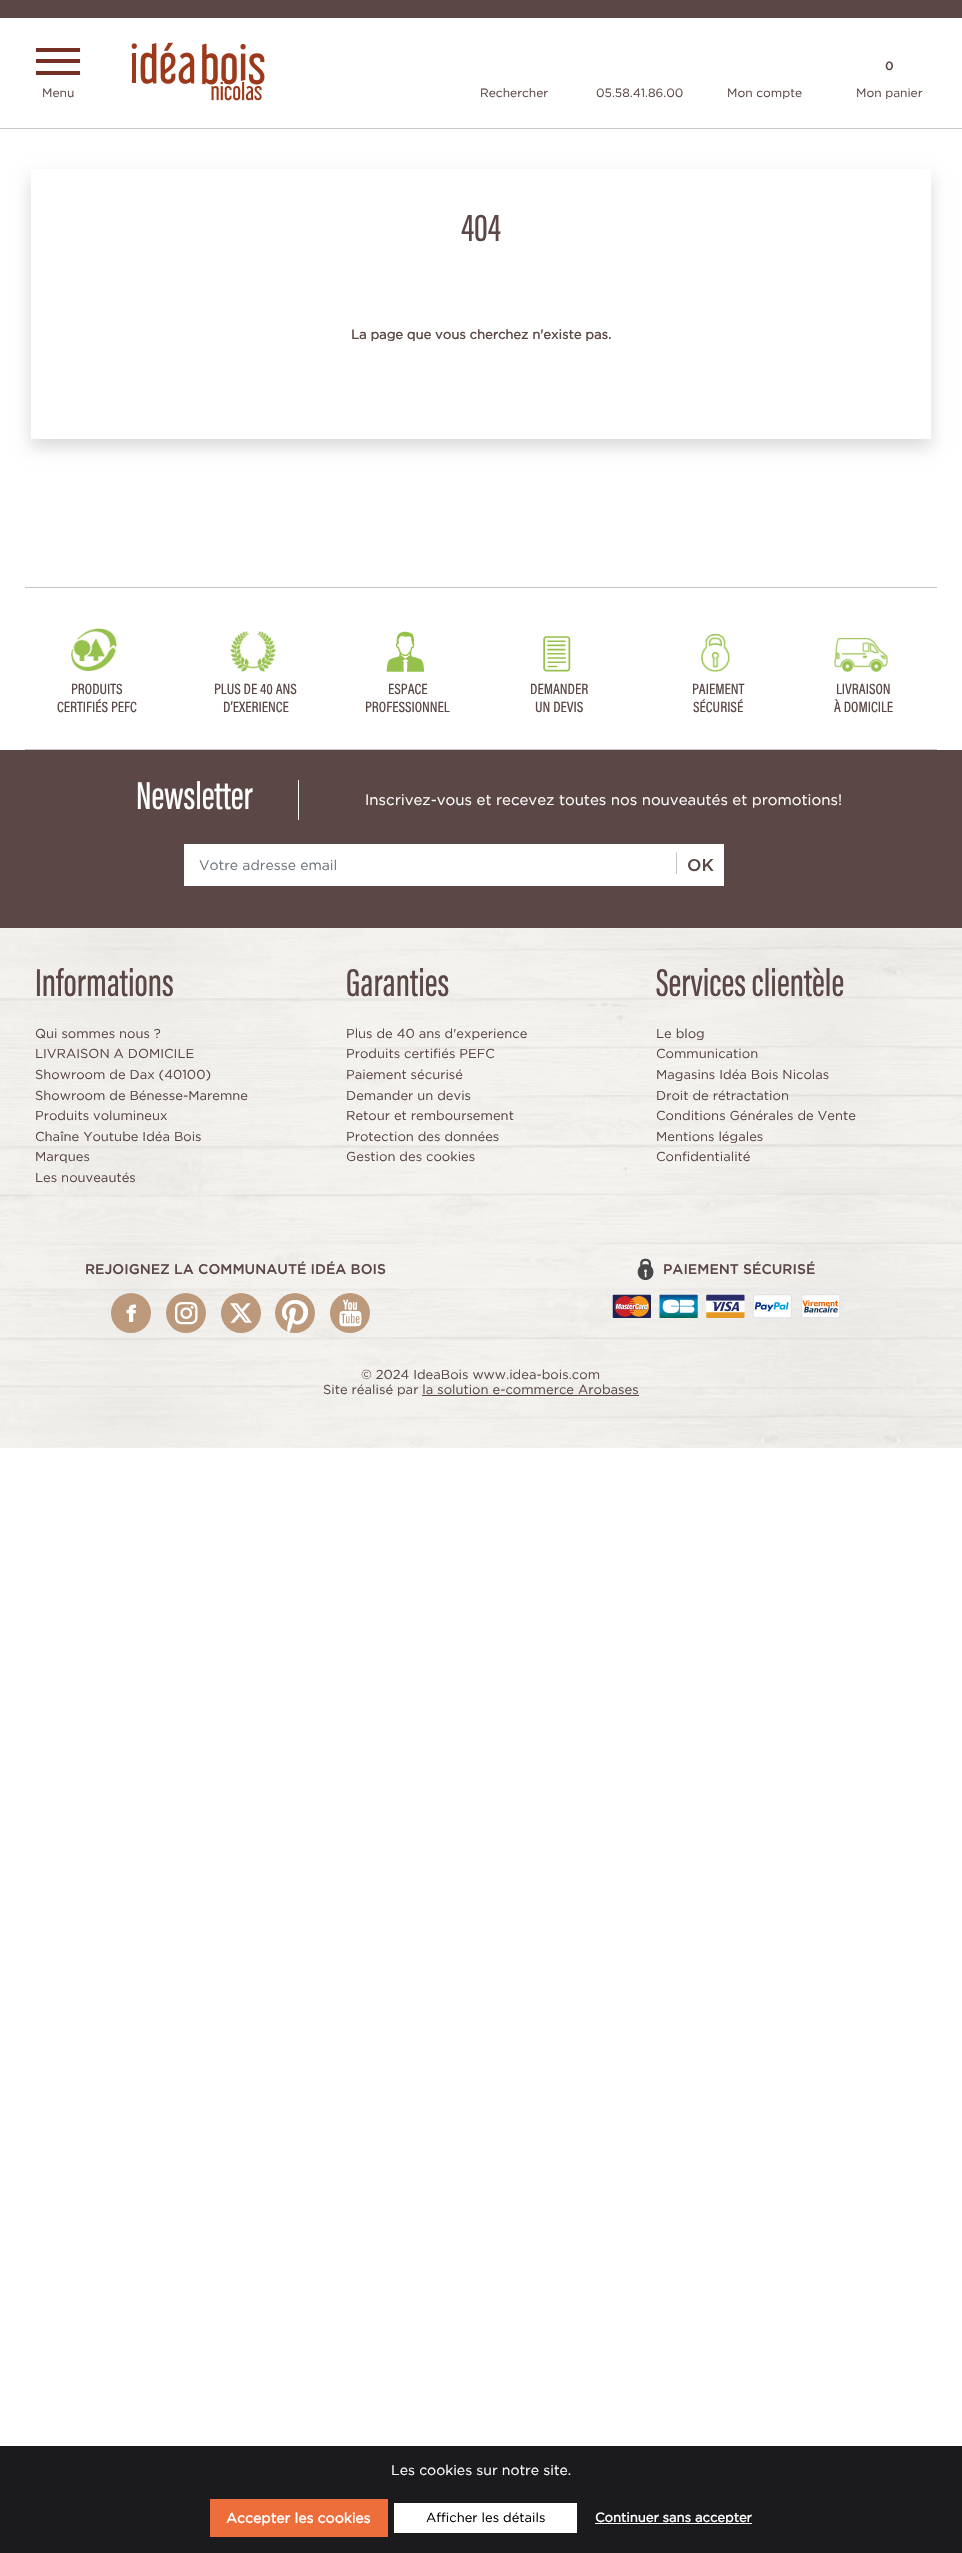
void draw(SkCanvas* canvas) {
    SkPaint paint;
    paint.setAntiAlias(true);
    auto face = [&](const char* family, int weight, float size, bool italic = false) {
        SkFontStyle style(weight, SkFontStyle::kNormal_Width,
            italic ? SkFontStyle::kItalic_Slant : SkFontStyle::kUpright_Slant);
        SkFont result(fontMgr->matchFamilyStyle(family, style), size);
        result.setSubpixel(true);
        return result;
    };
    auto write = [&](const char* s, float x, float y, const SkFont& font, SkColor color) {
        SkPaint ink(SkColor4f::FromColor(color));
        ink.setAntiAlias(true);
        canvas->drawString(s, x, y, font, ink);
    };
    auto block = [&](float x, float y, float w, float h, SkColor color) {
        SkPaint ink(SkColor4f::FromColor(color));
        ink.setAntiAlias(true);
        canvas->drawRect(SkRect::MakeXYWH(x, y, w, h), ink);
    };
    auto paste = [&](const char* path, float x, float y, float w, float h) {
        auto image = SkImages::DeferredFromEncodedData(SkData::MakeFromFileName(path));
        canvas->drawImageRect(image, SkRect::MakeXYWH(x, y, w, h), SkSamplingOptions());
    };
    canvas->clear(SK_ColorWHITE);
    block(0, 0, 962, 18, SkColorSetRGB(91, 72, 70));
    block(0, 128, 962, 1, SkColorSetRGB(198, 198, 198));
    paste("pic1.png", 36, 48, 45, 27);
    auto kFont1 = face("Gotham", 400, 12);
    write("Menu", 42, 97, kFont1, SkColorSetRGB(91, 72, 70));
    paste("pic2.png", 131, 42, 134, 59);
    write("Rechercher", 480, 97, kFont1, SkColorSetRGB(91, 72, 70));
    write("05.58.41.86.00", 596, 97, kFont1, SkColorSetRGB(91, 72, 70));
    write("Mon compte", 727, 97, kFont1, SkColorSetRGB(91, 72, 70));
    auto kFont2 = face("Gotham", 500, 12);
    write("0", 885, 70, kFont2, SkColorSetRGB(91, 72, 70));
    write("Mon panier", 856, 97, kFont1, SkColorSetRGB(91, 72, 70));
    canvas->save();
    canvas->clipPath(SkPathBuilder(SkPathFillType::kEvenOdd).moveTo(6, 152).lineTo(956, 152).lineTo(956, 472).lineTo(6, 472).close().moveTo(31, 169).lineTo(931, 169).lineTo(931, 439).lineTo(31, 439).close().detach(), true);
    paint.setColor(SkColorSetARGB(38, 0, 0, 0));
    paint.setMaskFilter(SkMaskFilter::MakeBlur(kNormal_SkBlurStyle, 8));
    canvas->drawRect(SkRect::MakeXYWH(31, 177, 900, 270), paint);
    paint.setMaskFilter(nullptr);
    canvas->restore();
    auto kFont3 = face("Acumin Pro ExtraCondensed", 500, 40);
    write("404", 461, 241, kFont3, SkColorSetRGB(91, 72, 70));
    auto kFont4 = face("Gotham", 700, 13);
    write("La page que vous cherchez n'existe pas.", 351, 339, kFont4, SkColorSetRGB(91, 72, 70));
    block(25, 587, 912, 1, SkColorSetRGB(198, 198, 198));
    block(25, 749, 912, 1, SkColorSetRGB(198, 198, 198));
    paste("pic3.png", 71, 628, 46, 43);
    auto kFont5 = face("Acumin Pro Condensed", 500, 15);
    write("PRODUITS", 71, 694, kFont5, SkColorSetRGB(91, 72, 70));
    write("CERTIFIÉS PEFC", 57, 712, kFont5, SkColorSetRGB(91, 72, 70));
    paste("pic4.png", 230, 631, 46, 41);
    write("PLUS DE 40 ANS", 214, 694, kFont5, SkColorSetRGB(91, 72, 70));
    write("D’EXERIENCE", 223, 712, kFont5, SkColorSetRGB(91, 72, 70));
    paste("pic5.png", 386, 631, 39, 41);
    write("ESPACE", 388, 694, kFont5, SkColorSetRGB(91, 72, 70));
    write("PROFESSIONNEL", 365, 712, kFont5, SkColorSetRGB(91, 72, 70));
    paste("pic6.png", 543, 636, 28, 36);
    write("DEMANDER", 530, 694, kFont5, SkColorSetRGB(91, 72, 70));
    write("UN DEVIS", 535, 712, kFont5, SkColorSetRGB(91, 72, 70));
    paste("pic7.png", 701, 634, 29, 38);
    write("PAIEMENT", 692, 694, kFont5, SkColorSetRGB(91, 72, 70));
    write("SÉCURISÉ", 693, 712, kFont5, SkColorSetRGB(91, 72, 70));
    paste("pic8.png", 834, 638, 54, 34);
    write("LIVRAISON", 836, 694, kFont5, SkColorSetRGB(91, 72, 70));
    write("À DOMICILE", 834, 712, kFont5, SkColorSetRGB(91, 72, 70));
    block(0, 750, 962, 178, SkColorSetRGB(91, 72, 70));
    write("Newsletter", 136, 809, kFont3, SK_ColorWHITE);
    block(298, 780, 1, 40, SK_ColorWHITE);
    auto kFont6 = face("Gotham", 400, 15);
    write("Inscrivez-vous et recevez toutes nos nouveautés et promotions!", 365, 805, kFont6, SK_ColorWHITE);
    block(184, 844, 540, 42, SK_ColorWHITE);
    auto kFont7 = face("Gotham", 400, 14);
    write("Votre adresse email", 199, 870, kFont7, SkColorSetRGB(108, 117, 125));
    block(676, 852, 1, 22, SkColorSetRGB(198, 197, 197));
    auto kFont8 = face("Gotham", 500, 17);
    write("OK", 687, 871, kFont8, SkColorSetRGB(91, 72, 70));
    block(0, 928, 962, 520, SkColorSetRGB(247, 245, 242));
    paste("pic9.png", 0, 928, 962, 520);
    write("Informations", 35, 996, kFont3, SkColorSetRGB(91, 72, 70));
    auto kFont9 = face("Gotham", 400, 13);
    write("Qui sommes nous ?", 35, 1038, kFont9, SkColorSetRGB(91, 72, 70));
    write("LIVRAISON A DOMICILE", 35, 1058, kFont9, SkColorSetRGB(91, 72, 70));
    write("Showroom de Dax (40100)", 35, 1079, kFont9, SkColorSetRGB(91, 72, 70));
    write("Showroom de Bénesse-Maremne", 35, 1100, kFont9, SkColorSetRGB(91, 72, 70));
    write("Produits volumineux", 35, 1120, kFont9, SkColorSetRGB(91, 72, 70));
    write("Chaîne Youtube Idéa Bois", 35, 1141, kFont9, SkColorSetRGB(91, 72, 70));
    write("Marques", 35, 1161, kFont9, SkColorSetRGB(91, 72, 70));
    write("Les nouveautés", 35, 1182, kFont9, SkColorSetRGB(91, 72, 70));
    write("Garanties", 346, 996, kFont3, SkColorSetRGB(91, 72, 70));
    write("Plus de 40 ans d'experience", 346, 1038, kFont9, SkColorSetRGB(91, 72, 70));
    write("Produits certifiés PEFC", 346, 1058, kFont9, SkColorSetRGB(91, 72, 70));
    write("Paiement sécurisé", 346, 1079, kFont9, SkColorSetRGB(91, 72, 70));
    write("Demander un devis", 346, 1100, kFont9, SkColorSetRGB(91, 72, 70));
    write("Retour et remboursement", 346, 1120, kFont9, SkColorSetRGB(91, 72, 70));
    write("Protection des données", 346, 1141, kFont9, SkColorSetRGB(91, 72, 70));
    write("Gestion des cookies", 346, 1161, kFont9, SkColorSetRGB(91, 72, 70));
    write("Services clientèle", 656, 996, kFont3, SkColorSetRGB(91, 72, 70));
    write("Le blog", 656, 1038, kFont9, SkColorSetRGB(91, 72, 70));
    write("Communication", 656, 1058, kFont9, SkColorSetRGB(91, 72, 70));
    write("Magasins Idéa Bois Nicolas", 656, 1079, kFont9, SkColorSetRGB(91, 72, 70));
    write("Droit de rétractation", 656, 1100, kFont9, SkColorSetRGB(91, 72, 70));
    write("Conditions Générales de Vente", 656, 1120, kFont9, SkColorSetRGB(91, 72, 70));
    write("Mentions légales", 656, 1141, kFont9, SkColorSetRGB(91, 72, 70));
    write("Confidentialité", 656, 1161, kFont9, SkColorSetRGB(91, 72, 70));
    auto kFont10 = face("Gotham", 500, 14);
    write("REJOIGNEZ LA COMMUNAUTÉ IDÉA BOIS", 85, 1274, kFont10, SkColorSetRGB(91, 72, 70));
    paint.setColor(SkColorSetRGB(188, 153, 123));
    canvas->drawCircle(131, 1313, 20, paint);
    paste("pic10.png", 126, 1304, 10, 18);
    canvas->drawCircle(186, 1313, 20, paint);
    paste("pic11.png", 175, 1302, 23, 23);
    canvas->drawCircle(241, 1313, 20, paint);
    paste("pic12.png", 230, 1303, 22, 20);
    canvas->drawCircle(295, 1313, 20, paint);
    paste("pic13.png", 282, 1300, 26, 32);
    canvas->drawCircle(350, 1313, 20, paint);
    paste("pic14.png", 339, 1299, 23, 28);
    paste("pic15.png", 637, 1258, 17, 22);
    write("PAIEMENT SÉCURISÉ", 663, 1274, kFont10, SkColorSetRGB(91, 72, 70));
    paste("pic16.png", 612, 1294, 229, 25);
    write("© 2024 IdeaBois www.idea-bois.com", 361, 1379, kFont9, SkColorSetRGB(91, 72, 70));
    write("Site réalisé par la solution e-commerce Arobases", 323, 1394, kFont9, SkColorSetRGB(91, 72, 70));
    block(422, 1395, 217, 1, SkColorSetRGB(91, 72, 70));
    block(0, 2446, 962, 107, SkColorSetRGB(27, 27, 30));
    write("Les cookies sur notre site.", 391, 2475, kFont7, SK_ColorWHITE);
    block(210, 2499, 178, 38, SkColorSetRGB(237, 110, 59));
    auto kFont11 = face("Gotham", 700, 14);
    write("Accepter les cookies", 226, 2523, kFont11, SK_ColorWHITE);
    block(394, 2503, 183, 30, SK_ColorWHITE);
    write("Afficher les détails", 426, 2522, kFont9, SK_ColorBLACK);
    block(595, 2523, 157, 1, SK_ColorWHITE);
    write("Continuer sans accepter", 595, 2522, kFont4, SK_ColorWHITE);
}
